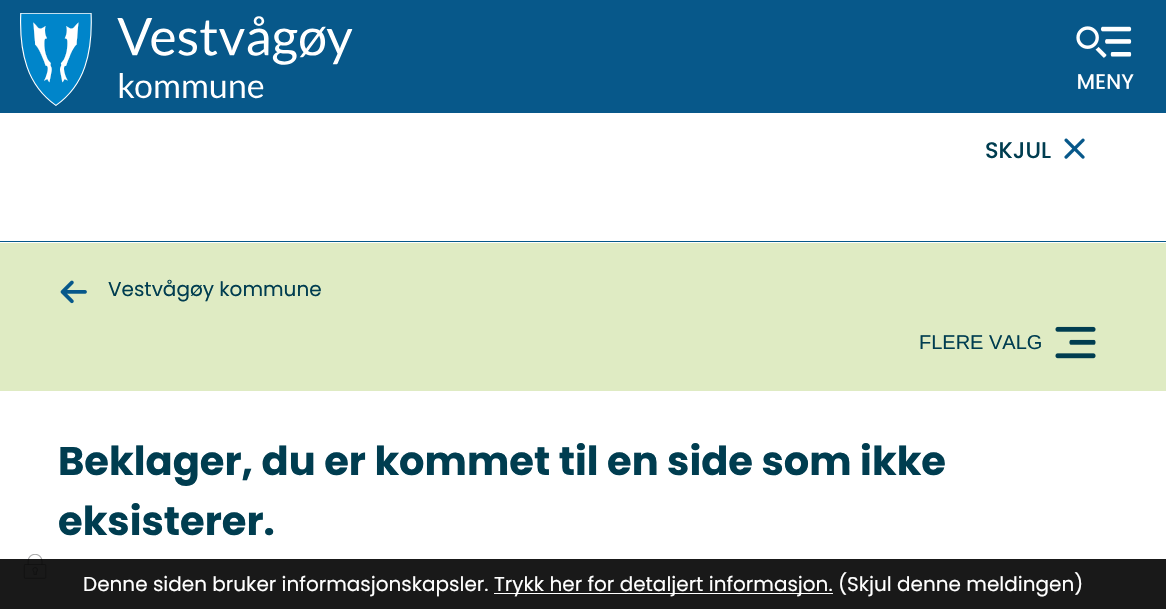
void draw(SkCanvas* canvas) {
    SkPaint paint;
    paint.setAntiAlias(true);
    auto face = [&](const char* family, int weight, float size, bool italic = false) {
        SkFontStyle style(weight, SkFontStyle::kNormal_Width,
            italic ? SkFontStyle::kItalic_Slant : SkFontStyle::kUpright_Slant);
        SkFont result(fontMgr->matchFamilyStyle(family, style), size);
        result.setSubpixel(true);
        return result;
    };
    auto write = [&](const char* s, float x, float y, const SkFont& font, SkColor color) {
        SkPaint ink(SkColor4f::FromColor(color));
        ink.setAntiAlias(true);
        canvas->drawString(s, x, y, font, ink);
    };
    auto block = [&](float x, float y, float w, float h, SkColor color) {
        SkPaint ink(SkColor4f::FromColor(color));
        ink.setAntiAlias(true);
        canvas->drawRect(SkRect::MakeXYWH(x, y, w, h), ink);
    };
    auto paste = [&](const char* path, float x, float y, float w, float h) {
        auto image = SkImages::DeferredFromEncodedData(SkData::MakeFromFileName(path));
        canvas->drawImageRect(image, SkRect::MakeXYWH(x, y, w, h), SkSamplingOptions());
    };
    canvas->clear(SK_ColorWHITE);
    block(0, 0, 1166, 113, SkColorSetRGB(7, 88, 138));
    paste("pic1.png", 20, 13, 333, 93);
    paste("pic2.png", 1076, 26, 58, 63);
    block(0, 241, 1166, 1, SkColorSetRGB(7, 88, 138));
    auto kFont1 = face("Poppins", 500, 22.5f);
    write("SKJUL", 985, 158, kFont1, SkColorSetRGB(0, 61, 80));
    paste("pic3.png", 1064, 138, 21, 21);
    block(0, 243, 1166, 148, SkColorSetRGB(223, 235, 195));
    paste("pic4.png", 60, 280, 27, 24);
    auto kFont2 = face("Poppins", 400, 20);
    write("Vestvågøy kommune", 108, 296, kFont2, SkColorSetRGB(0, 61, 80));
    auto kFont3 = face("Liberation Sans", 400, 20);
    write("FLERE VALG", 919, 349, kFont3, SkColorSetRGB(0, 61, 80));
    paste("pic5.png", 1055, 326, 41, 33);
    auto kFont4 = face("Poppins", 700, 40);
    write("Beklager, du er kommet til en side som ikke", 58, 475, kFont4, SkColorSetRGB(0, 61, 80));
    write("eksisterer.", 58, 535, kFont4, SkColorSetRGB(0, 61, 80));
    paste("pic6.png", 23, 554, 24, 25);
    block(0, 559, 1166, 50, SkColorSetARGB(230, 0, 0, 0));
    write("Denne siden bruker informasjonskapsler.", 83, 591, kFont2, SK_ColorWHITE);
    block(494, 593, 339, 1, SK_ColorWHITE);
    write("Trykk her for detaljert informasjon. (Skjul denne meldingen)", 494, 591, kFont2, SK_ColorWHITE);
}
